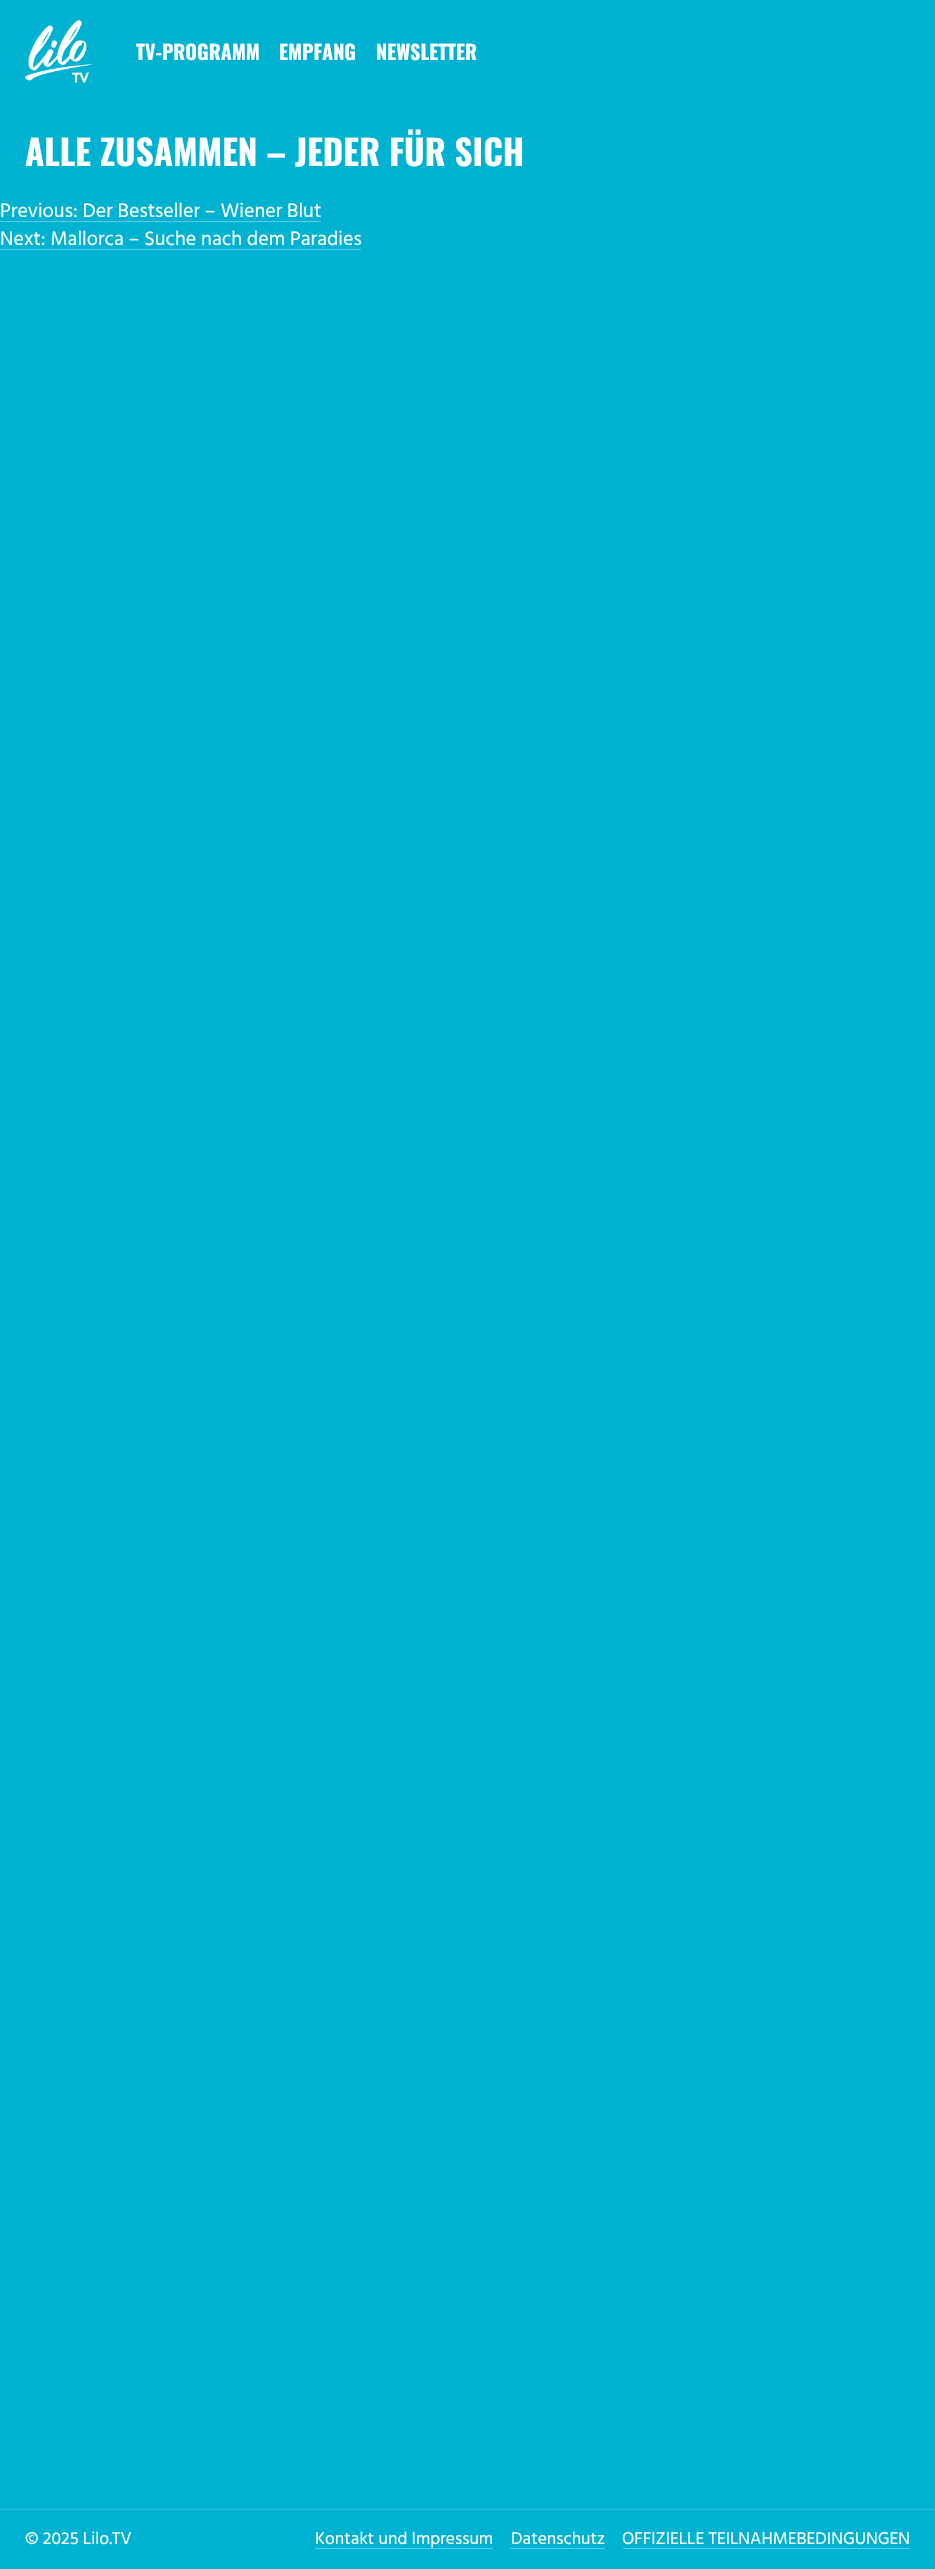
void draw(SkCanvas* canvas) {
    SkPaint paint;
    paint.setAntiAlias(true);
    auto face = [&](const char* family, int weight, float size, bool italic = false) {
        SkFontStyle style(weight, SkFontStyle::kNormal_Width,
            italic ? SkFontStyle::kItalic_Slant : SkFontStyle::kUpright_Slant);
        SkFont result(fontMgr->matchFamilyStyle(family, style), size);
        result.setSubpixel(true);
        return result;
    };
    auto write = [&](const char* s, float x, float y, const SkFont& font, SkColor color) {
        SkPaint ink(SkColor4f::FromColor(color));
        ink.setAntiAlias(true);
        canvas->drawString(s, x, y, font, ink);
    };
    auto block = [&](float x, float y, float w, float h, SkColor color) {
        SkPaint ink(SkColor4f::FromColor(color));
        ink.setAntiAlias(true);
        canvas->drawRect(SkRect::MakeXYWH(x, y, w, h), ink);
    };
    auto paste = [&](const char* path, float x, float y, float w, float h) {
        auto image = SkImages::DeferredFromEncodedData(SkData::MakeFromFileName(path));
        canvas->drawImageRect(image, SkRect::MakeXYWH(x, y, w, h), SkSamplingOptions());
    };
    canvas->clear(SkColorSetRGB(0, 178, 210));
    paste("pic1.png", 25, 20, 70, 63);
    auto kFont1 = face("Oswald", 700, 20);
    write("TV-PROGRAMM", 136, 60, kFont1, SK_ColorWHITE);
    write("EMPFANG", 279, 60, kFont1, SK_ColorWHITE);
    write("NEWSLETTER", 376, 60, kFont1, SK_ColorWHITE);
    auto kFont2 = face("Oswald", 700, 35);
    write("ALLE ZUSAMMEN – JEDER FÜR SICH", 25, 166, kFont2, SK_ColorWHITE);
    {
        const SkColor colors[] = {SkColorSetRGB(0, 178, 210), SkColorSetARGB(179, 0, 178, 210), SkColorSetARGB(0, 0, 178, 210)};
        const float stops[] = {0, 0.4f, 0.8f};
        const SkPoint ends[] = {{468, 0}, {468, 175}};
        paint.setShader(SkGradientShader::MakeLinear(ends, colors, stops, 3, SkTileMode::kClamp));
        paint.setAlpha(255);
    }
    canvas->drawRect(SkRect::MakeXYWH(143, 129, 353, 9), paint);
    auto kFont3 = face("Hind", 400, 20);
    write("Previous: Der Bestseller – Wiener Blut", 0, 217, kFont3, SK_ColorWHITE);
    block(0, 221, 321, 1, SkColorSetRGB(89, 205, 226));
    write("Next: Mallorca – Suche nach dem Paradies", 0, 245, kFont3, SK_ColorWHITE);
    block(0, 249, 361, 1, SkColorSetRGB(89, 205, 226));
    block(0, 2509, 935, 1, SkColorSetRGB(38, 190, 217));
    auto kFont4 = face("Hind", 400, 17.5f);
    write("© 2025 Lilo.TV", 25, 2544, kFont4, SK_ColorWHITE);
    write("Kontakt und Impressum", 315, 2544, kFont4, SK_ColorWHITE);
    block(315, 2548, 178, 1, SkColorSetRGB(89, 205, 226));
    write("Datenschutz", 511, 2544, kFont4, SK_ColorWHITE);
    block(510, 2548, 95, 1, SkColorSetRGB(89, 205, 226));
    write("OFFIZIELLE TEILNAHMEBEDINGUNGEN", 622, 2544, kFont4, SK_ColorWHITE);
    block(623, 2548, 287, 1, SkColorSetRGB(89, 205, 226));
}
